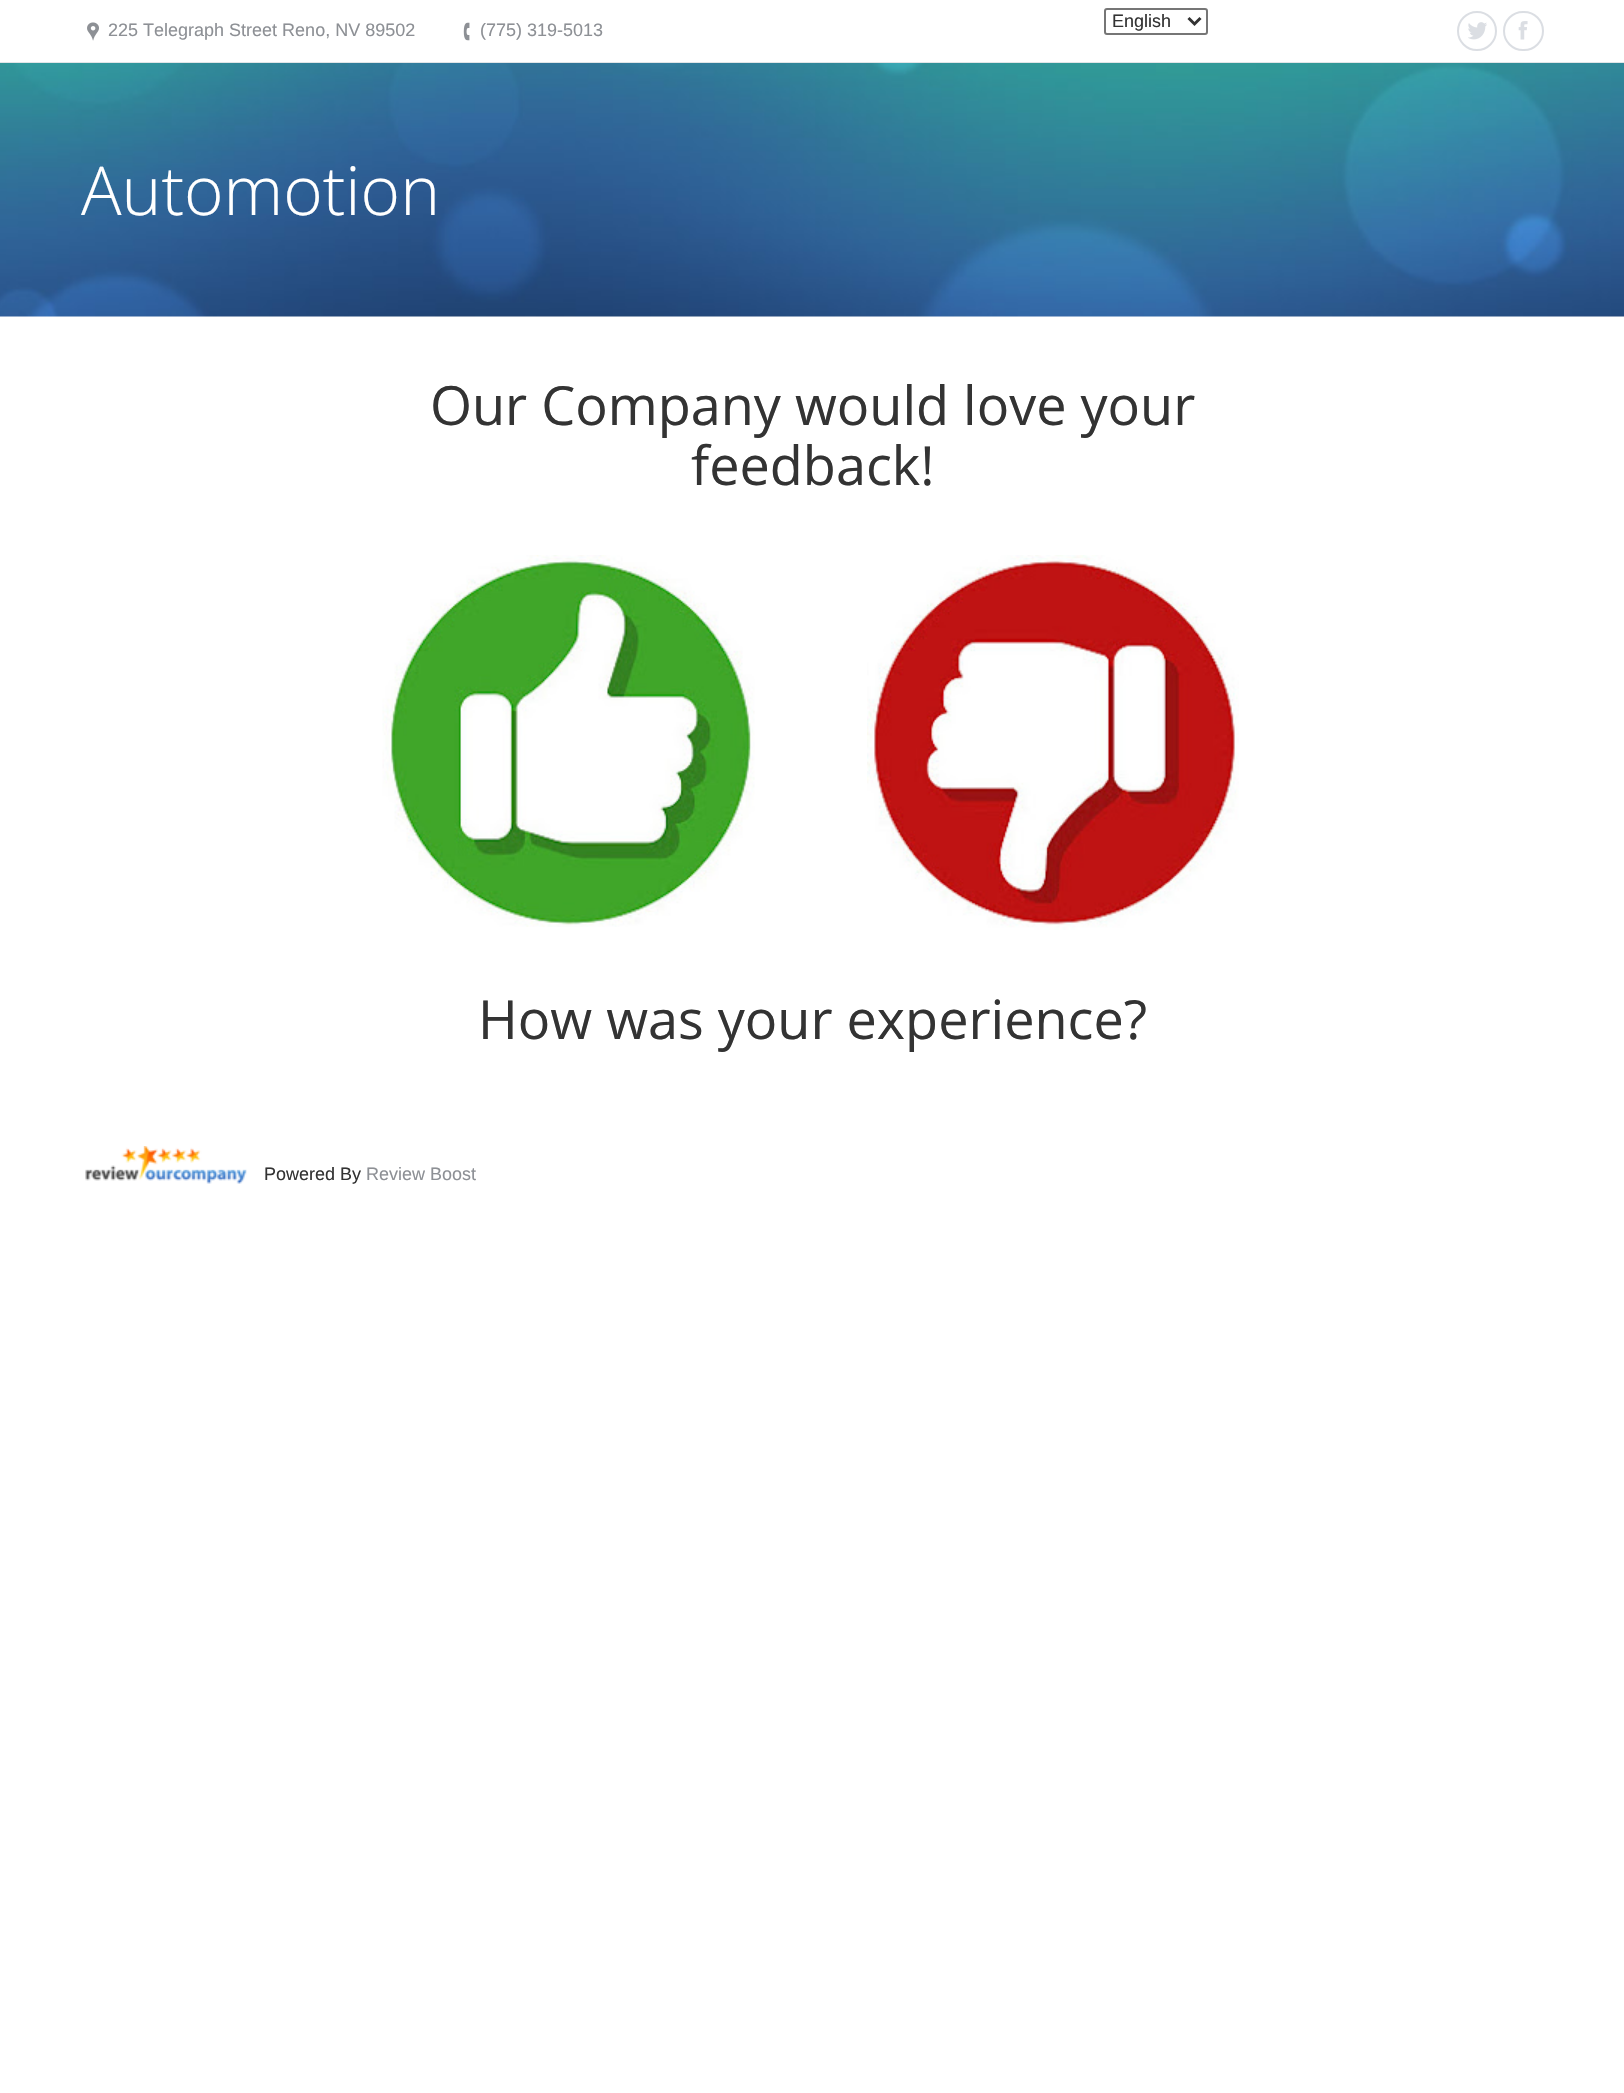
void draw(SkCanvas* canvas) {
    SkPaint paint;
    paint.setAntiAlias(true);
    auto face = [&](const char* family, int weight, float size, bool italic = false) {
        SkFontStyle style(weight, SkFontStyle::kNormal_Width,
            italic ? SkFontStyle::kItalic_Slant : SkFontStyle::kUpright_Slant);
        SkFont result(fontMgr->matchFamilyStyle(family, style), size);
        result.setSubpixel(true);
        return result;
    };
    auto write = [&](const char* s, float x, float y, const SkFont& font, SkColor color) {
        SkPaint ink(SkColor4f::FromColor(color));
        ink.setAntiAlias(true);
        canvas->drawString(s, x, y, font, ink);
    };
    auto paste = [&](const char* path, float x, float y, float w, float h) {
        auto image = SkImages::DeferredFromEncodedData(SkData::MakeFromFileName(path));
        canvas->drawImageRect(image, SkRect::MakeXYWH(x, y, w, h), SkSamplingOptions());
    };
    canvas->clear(SK_ColorWHITE);
    paint.setColor(SkColorSetRGB(225, 229, 231));
    canvas->drawPath(SkPathBuilder().moveTo(0, -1).lineTo(0, 0).lineTo(1624, 0).lineTo(1624, 62).lineTo(0, 62).lineTo(0, 63).lineTo(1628, 63).lineTo(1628, -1).close().detach(), paint);
    paste("pic1.png", 87, 22, 12, 19);
    auto kFont1 = face("Liberation Sans", 400, 18);
    write("225 Telegraph Street Reno, NV 89502", 108, 36, kFont1, SkColorSetRGB(141, 144, 149));
    paste("pic2.png", 463, 22, 7, 19);
    write("(775) 319-5013", 480, 36, kFont1, SkColorSetRGB(141, 144, 149));
    paint.setStyle(SkPaint::kStroke_Style);
    paint.setStrokeWidth(2);
    paint.setColor(SkColorSetRGB(118, 118, 118));
    canvas->drawRoundRect(SkRect::MakeXYWH(1105, 9, 102, 25), 2, 2, paint);
    paint.setStrokeWidth(3);
    paint.setColor(SkColorSetRGB(51, 51, 51));
    canvas->drawPath(SkPathBuilder().moveTo(1188.5f, 18).lineTo(1194.5f, 24).lineTo(1200.5f, 18).detach(), paint);
    write("English", 1112, 27, kFont1, SkColorSetRGB(51, 51, 51));
    paint.setStrokeWidth(2);
    paint.setColor(SkColorSetRGB(219, 222, 227));
    canvas->drawCircle(1477, 31, 19, paint);
    paste("pic3.png", 1468, 22, 19, 18);
    canvas->drawRoundRect(SkRect::MakeXYWH(1504, 12, 39, 38), 19, 19, paint);
    paste("pic4.png", 1518, 21, 10, 19);
    paste("pic5.png", 0, 63, 1624, 254);
    auto kFont2 = face("Open Sans", 300, 67.5f);
    write("Automotion", 81, 215, kFont2, SK_ColorWHITE);
    auto kFont3 = face("Open Sans", 400, 54);
    write("Our Company would love your", 430, 425, kFont3, SkColorSetRGB(51, 51, 51));
    write("feedback!", 691, 485, kFont3, SkColorSetRGB(51, 51, 51));
    paste("pic6.png", 382, 555, 373, 372);
    paste("pic7.png", 867, 555, 372, 375);
    write("How was your experience?", 478, 1039, kFont3, SkColorSetRGB(51, 51, 51));
    paste("pic8.png", 85, 1146, 162, 38);
    write("Powered By", 264, 1180, kFont1, SkColorSetRGB(51, 51, 51));
    write("Review Boost", 366, 1180, kFont1, SkColorSetRGB(141, 144, 149));
}
